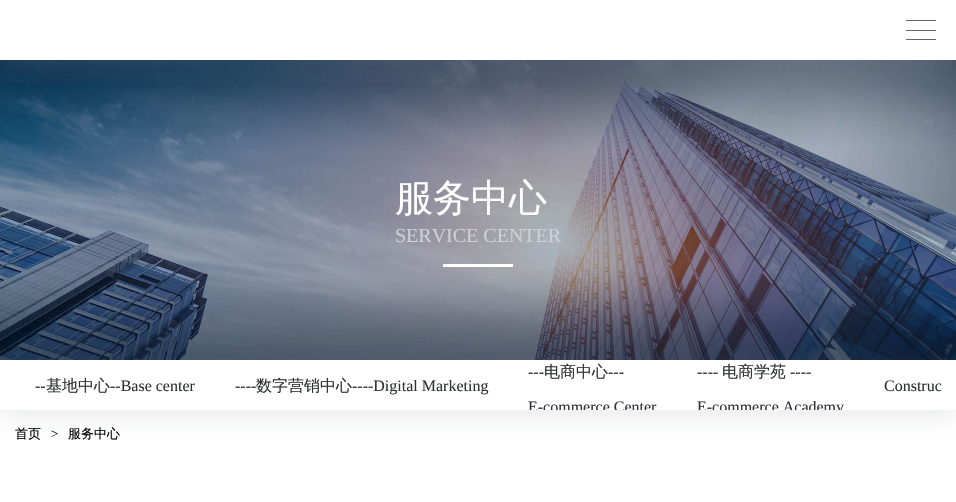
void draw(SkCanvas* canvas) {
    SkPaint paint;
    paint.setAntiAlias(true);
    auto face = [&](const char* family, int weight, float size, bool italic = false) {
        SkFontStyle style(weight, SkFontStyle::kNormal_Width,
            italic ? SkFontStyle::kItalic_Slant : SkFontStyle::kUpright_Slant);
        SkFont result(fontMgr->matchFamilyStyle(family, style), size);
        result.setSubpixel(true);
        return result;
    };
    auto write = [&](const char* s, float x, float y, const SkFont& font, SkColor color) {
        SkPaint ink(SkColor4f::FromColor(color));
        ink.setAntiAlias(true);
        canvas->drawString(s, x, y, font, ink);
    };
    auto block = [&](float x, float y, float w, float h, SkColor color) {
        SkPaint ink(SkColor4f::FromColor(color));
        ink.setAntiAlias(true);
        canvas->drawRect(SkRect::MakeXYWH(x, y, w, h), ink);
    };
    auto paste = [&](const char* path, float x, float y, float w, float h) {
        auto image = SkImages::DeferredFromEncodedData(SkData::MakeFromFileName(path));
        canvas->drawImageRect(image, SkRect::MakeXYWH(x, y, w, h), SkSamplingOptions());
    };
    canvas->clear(SK_ColorWHITE);
    paste("pic1.png", 0, 60, 956, 300);
    canvas->save();
    canvas->clipRect(SkRect::MakeXYWH(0, 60, 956, 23));
    paint.setColor(SkColorSetARGB(51, 149, 157, 165));
    paint.setMaskFilter(SkMaskFilter::MakeBlur(kNormal_SkBlurStyle, 12));
    canvas->drawRect(SkRect::MakeXYWH(0, 8, 956, 60), paint);
    paint.setMaskFilter(nullptr);
    canvas->restore();
    block(906, 20, 30, 1, SkColorSetRGB(102, 102, 102));
    block(906, 30, 30, 1, SkColorSetRGB(102, 102, 102));
    block(906, 39, 30, 1, SkColorSetRGB(102, 102, 102));
    auto kFont1 = face("WenQuanYi Zen Hei", 500, 38);
    write("服务中心", 395, 211, kFont1, SK_ColorWHITE);
    auto kFont2 = face("Liberation Serif", 400, 20);
    write("SERVICE CENTER", 395, 242, kFont2, SkColorSetRGB(207, 208, 212));
    block(443, 264, 70, 3, SK_ColorWHITE);
    canvas->save();
    canvas->clipPath(SkPathBuilder(SkPathFillType::kEvenOdd).moveTo(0, 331).lineTo(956, 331).lineTo(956, 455).lineTo(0, 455).close().moveTo(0, 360).lineTo(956, 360).lineTo(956, 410).lineTo(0, 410).close().detach(), true);
    paint.setMaskFilter(SkMaskFilter::MakeBlur(kNormal_SkBlurStyle, 12));
    canvas->drawRect(SkRect::MakeXYWH(0, 368, 956, 50), paint);
    paint.setMaskFilter(nullptr);
    canvas->restore();
    auto kFont3 = face("Liberation Serif", 400, 16);
    write("--", 35, 391, kFont3, SkColorSetRGB(48, 49, 51));
    auto kFont4 = face("WenQuanYi Zen Hei", 500, 16);
    write("基地中心", 46, 391, kFont4, SkColorSetRGB(48, 49, 51));
    write("--Base center", 110, 391, kFont3, SkColorSetRGB(48, 49, 51));
    write("----", 235, 391, kFont3, SkColorSetRGB(48, 49, 51));
    write("数字营销中心", 256, 391, kFont4, SkColorSetRGB(48, 49, 51));
    write("----Digital Marketing", 352, 391, kFont3, SkColorSetRGB(48, 49, 51));
    write("---", 528, 377, kFont3, SkColorSetRGB(48, 49, 51));
    write("电商中心", 544, 377, kFont4, SkColorSetRGB(48, 49, 51));
    write("---", 608, 377, kFont3, SkColorSetRGB(48, 49, 51));
    canvas->save();
    canvas->clipRect(SkRect::MakeXYWH(15, 360, 926, 50));
    write("E-commerce Center", 528, 412, kFont3, SkColorSetRGB(48, 49, 51));
    canvas->restore();
    write("----", 697, 377, kFont3, SkColorSetRGB(48, 49, 51));
    write("电商学苑", 722, 377, kFont4, SkColorSetRGB(48, 49, 51));
    write("----", 790, 377, kFont3, SkColorSetRGB(48, 49, 51));
    canvas->save();
    canvas->clipRect(SkRect::MakeXYWH(15, 360, 926, 50));
    write("E-commerce Academy", 697, 412, kFont3, SkColorSetRGB(48, 49, 51));
    canvas->restore();
    write("Construc", 884, 391, kFont3, SkColorSetRGB(48, 49, 51));
    auto kFont5 = face("WenQuanYi Zen Hei", 500, 13);
    write("首页", 15, 438, kFont5, SK_ColorBLACK);
    auto kFont6 = face("Liberation Serif", 400, 13);
    write(">", 51, 438, kFont6, SK_ColorBLACK);
    write("服务中心", 68, 438, kFont5, SK_ColorBLACK);
}
